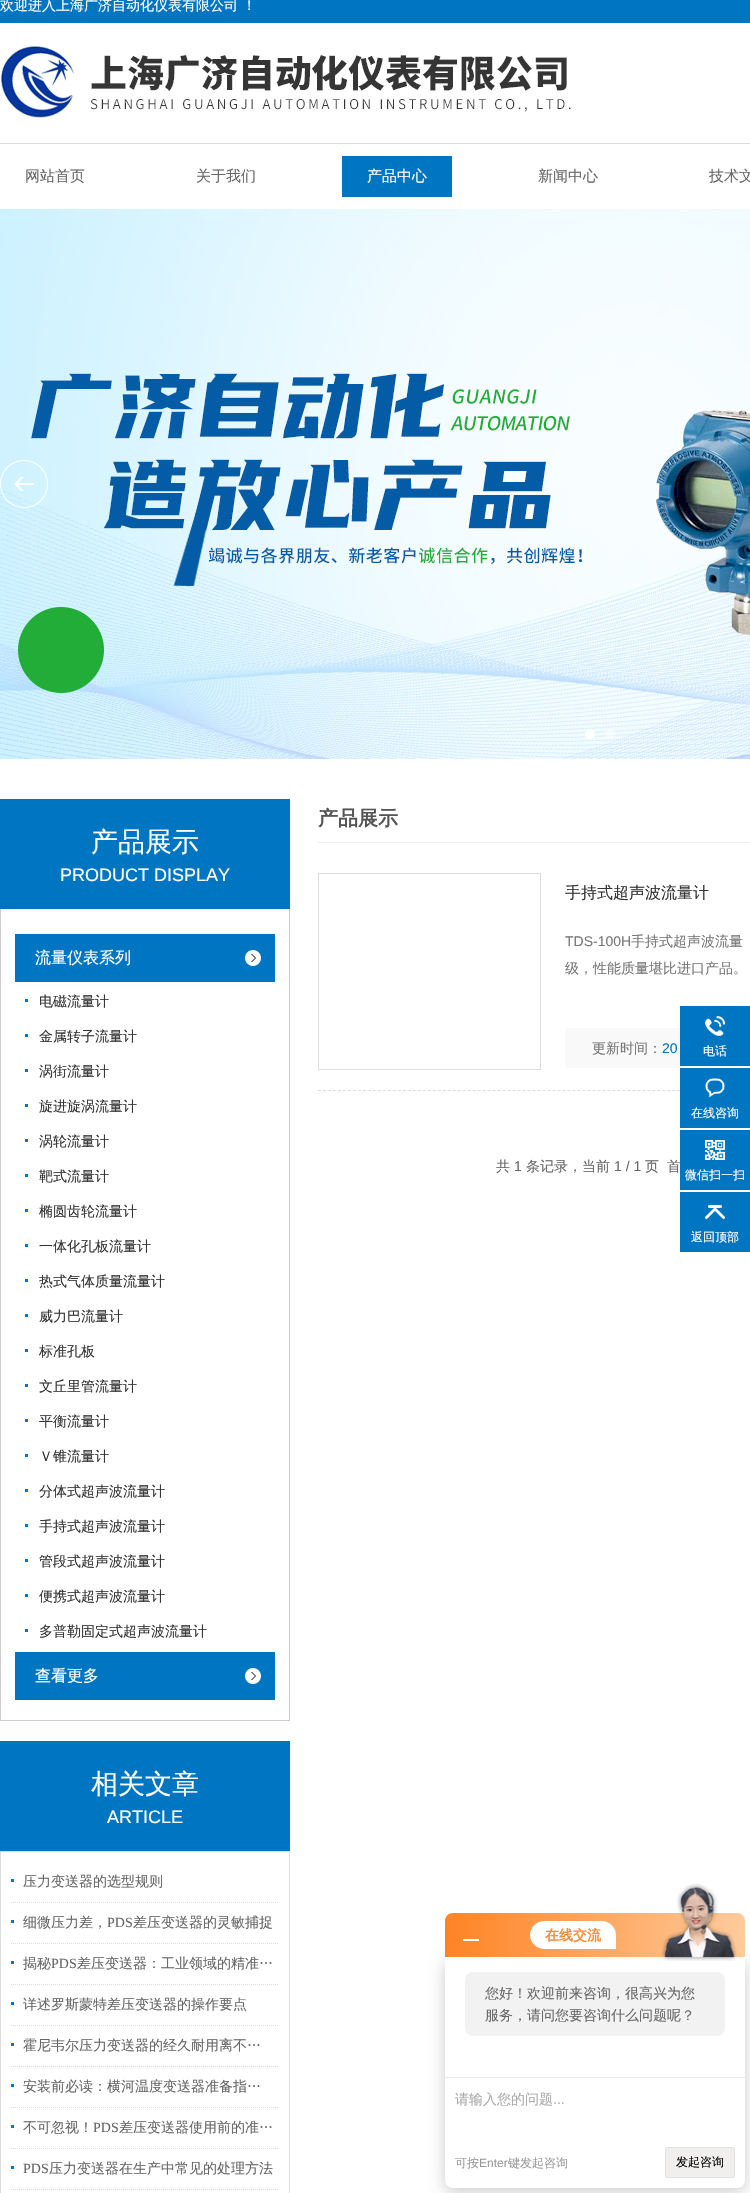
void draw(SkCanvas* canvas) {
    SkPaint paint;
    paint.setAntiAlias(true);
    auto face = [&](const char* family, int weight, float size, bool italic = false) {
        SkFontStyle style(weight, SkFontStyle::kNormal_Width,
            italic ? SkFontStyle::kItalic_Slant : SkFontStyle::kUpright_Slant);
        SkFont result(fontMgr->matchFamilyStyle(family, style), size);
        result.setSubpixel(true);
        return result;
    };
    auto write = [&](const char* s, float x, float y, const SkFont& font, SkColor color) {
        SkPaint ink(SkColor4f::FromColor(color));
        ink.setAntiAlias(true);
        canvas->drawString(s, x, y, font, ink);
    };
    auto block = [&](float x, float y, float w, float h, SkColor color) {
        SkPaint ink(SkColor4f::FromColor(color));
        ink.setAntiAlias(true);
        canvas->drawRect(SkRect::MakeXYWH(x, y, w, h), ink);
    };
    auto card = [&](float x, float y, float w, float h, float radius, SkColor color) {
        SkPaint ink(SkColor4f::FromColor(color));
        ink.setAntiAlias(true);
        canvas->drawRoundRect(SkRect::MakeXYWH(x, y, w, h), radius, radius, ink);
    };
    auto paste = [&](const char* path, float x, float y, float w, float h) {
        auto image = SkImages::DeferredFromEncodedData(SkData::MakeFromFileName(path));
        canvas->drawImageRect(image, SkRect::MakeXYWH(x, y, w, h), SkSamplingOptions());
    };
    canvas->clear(SK_ColorWHITE);
    block(0, 0, 750, 23, SkColorSetRGB(0, 117, 193));
    auto kFont1 = face("WenQuanYi Zen Hei", 500, 14);
    write("欢迎进入上海广济自动化仪表有限公司 ！", 0, 10, kFont1, SK_ColorWHITE);
    paste("pic1.png", 1, 46, 570, 73);
    block(0, 143, 750, 1, SkColorSetRGB(221, 221, 221));
    auto kFont2 = face("WenQuanYi Zen Hei", 500, 15);
    write("网站首页", 25, 181, kFont2, SkColorSetRGB(102, 102, 102));
    write("关于我们", 196, 181, kFont2, SkColorSetRGB(102, 102, 102));
    block(342, 156, 110, 41, SkColorSetRGB(0, 117, 193));
    write("产品中心", 367, 181, kFont2, SK_ColorWHITE);
    write("新闻中心", 538, 181, kFont2, SkColorSetRGB(102, 102, 102));
    write("技术文", 709, 181, kFont2, SkColorSetRGB(102, 102, 102));
    paste("pic2.png", 0, 209, 750, 550);
    paste("pic3.png", 0, 460, 48, 48);
    paint.setColor(SK_ColorWHITE);
    canvas->drawCircle(590, 734, 5, paint);
    paint.setColor(SkColorSetARGB(128, 255, 255, 255));
    canvas->drawCircle(610, 734, 5, paint);
    block(0, 799, 290, 110, SkColorSetRGB(0, 117, 193));
    auto kFont3 = face("WenQuanYi Zen Hei", 500, 27);
    write("产品展示", 91, 851, kFont3, SK_ColorWHITE);
    auto kFont4 = face("Liberation Sans", 400, 18);
    write("PRODUCT DISPLAY", 60, 881, kFont4, SK_ColorWHITE);
    block(289, 909, 1, 812, SkColorSetRGB(204, 204, 204));
    block(0, 1720, 290, 1, SkColorSetRGB(204, 204, 204));
    block(0, 909, 1, 812, SkColorSetRGB(204, 204, 204));
    block(15, 934, 260, 48, SkColorSetRGB(0, 117, 193));
    paste("pic4.png", 245, 950, 16, 16);
    auto kFont5 = face("WenQuanYi Zen Hei", 500, 16);
    write("流量仪表系列", 35, 963, kFont5, SK_ColorWHITE);
    block(25, 999, 3, 3, SkColorSetRGB(0, 117, 193));
    write("电磁流量计", 39, 1006, kFont1, SkColorSetRGB(51, 51, 51));
    block(25, 1034, 3, 3, SkColorSetRGB(0, 117, 193));
    write("金属转子流量计", 39, 1041, kFont1, SkColorSetRGB(51, 51, 51));
    block(25, 1069, 3, 3, SkColorSetRGB(0, 117, 193));
    write("涡街流量计", 39, 1076, kFont1, SkColorSetRGB(51, 51, 51));
    block(25, 1104, 3, 3, SkColorSetRGB(0, 117, 193));
    write("旋进旋涡流量计", 39, 1111, kFont1, SkColorSetRGB(51, 51, 51));
    block(25, 1139, 3, 3, SkColorSetRGB(0, 117, 193));
    write("涡轮流量计", 39, 1146, kFont1, SkColorSetRGB(51, 51, 51));
    block(25, 1174, 3, 3, SkColorSetRGB(0, 117, 193));
    write("靶式流量计", 39, 1181, kFont1, SkColorSetRGB(51, 51, 51));
    block(25, 1209, 3, 3, SkColorSetRGB(0, 117, 193));
    write("椭圆齿轮流量计", 39, 1216, kFont1, SkColorSetRGB(51, 51, 51));
    block(25, 1244, 3, 3, SkColorSetRGB(0, 117, 193));
    write("一体化孔板流量计", 39, 1251, kFont1, SkColorSetRGB(51, 51, 51));
    block(25, 1279, 3, 3, SkColorSetRGB(0, 117, 193));
    write("热式气体质量流量计", 39, 1286, kFont1, SkColorSetRGB(51, 51, 51));
    block(25, 1314, 3, 3, SkColorSetRGB(0, 117, 193));
    write("威力巴流量计", 39, 1321, kFont1, SkColorSetRGB(51, 51, 51));
    block(25, 1349, 3, 3, SkColorSetRGB(0, 117, 193));
    write("标准孔板", 39, 1356, kFont1, SkColorSetRGB(51, 51, 51));
    block(25, 1384, 3, 3, SkColorSetRGB(0, 117, 193));
    write("文丘里管流量计", 39, 1391, kFont1, SkColorSetRGB(51, 51, 51));
    block(25, 1419, 3, 3, SkColorSetRGB(0, 117, 193));
    write("平衡流量计", 39, 1426, kFont1, SkColorSetRGB(51, 51, 51));
    block(25, 1454, 3, 3, SkColorSetRGB(0, 117, 193));
    write("Ｖ锥流量计", 39, 1461, kFont1, SkColorSetRGB(51, 51, 51));
    block(25, 1489, 3, 3, SkColorSetRGB(0, 117, 193));
    write("分体式超声波流量计", 39, 1496, kFont1, SkColorSetRGB(51, 51, 51));
    block(25, 1524, 3, 3, SkColorSetRGB(0, 117, 193));
    write("手持式超声波流量计", 39, 1531, kFont1, SkColorSetRGB(51, 51, 51));
    block(25, 1559, 3, 3, SkColorSetRGB(0, 117, 193));
    write("管段式超声波流量计", 39, 1566, kFont1, SkColorSetRGB(51, 51, 51));
    block(25, 1594, 3, 3, SkColorSetRGB(0, 117, 193));
    write("便携式超声波流量计", 39, 1601, kFont1, SkColorSetRGB(51, 51, 51));
    block(25, 1629, 3, 3, SkColorSetRGB(0, 117, 193));
    write("多普勒固定式超声波流量计", 39, 1636, kFont1, SkColorSetRGB(51, 51, 51));
    block(15, 1652, 260, 48, SkColorSetRGB(0, 117, 193));
    paste("pic4.png", 245, 1668, 16, 16);
    write("查看更多", 35, 1681, kFont5, SK_ColorWHITE);
    block(0, 1741, 290, 110, SkColorSetRGB(0, 117, 193));
    write("相关文章", 91, 1793, kFont3, SK_ColorWHITE);
    write("ARTICLE", 107, 1823, kFont4, SK_ColorWHITE);
    paint.setStyle(SkPaint::kStroke_Style);
    paint.setStrokeWidth(1);
    paint.setColor(SkColorSetRGB(221, 221, 221));
    canvas->drawRect(SkRect::MakeXYWH(0.5f, 1851.5f, 289, 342), paint);
    paint.setPathEffect(SkDashPathEffect::Make({{1, 1}}, 0));
    canvas->drawPath(SkPathBuilder().moveTo(11, 1902.5f).lineTo(279, 1902.5f).detach(), paint);
    paint.setPathEffect(nullptr);
    block(11, 1879, 3, 3, SkColorSetRGB(0, 117, 193));
    write("压力变送器的选型规则", 23, 1886, kFont1, SkColorSetRGB(102, 102, 102));
    paint.setPathEffect(SkDashPathEffect::Make({{1, 1}}, 0));
    canvas->drawPath(SkPathBuilder().moveTo(11, 1943.5f).lineTo(279, 1943.5f).detach(), paint);
    paint.setPathEffect(nullptr);
    block(11, 1920, 3, 3, SkColorSetRGB(0, 117, 193));
    write("细微压力差，", 23, 1927, kFont1, SkColorSetRGB(102, 102, 102));
    auto kFont6 = face("Liberation Serif", 400, 14);
    write("PDS", 107, 1927, kFont6, SkColorSetRGB(102, 102, 102));
    write("差压变送器的灵敏捕捉", 133, 1927, kFont1, SkColorSetRGB(102, 102, 102));
    paint.setPathEffect(SkDashPathEffect::Make({{1, 1}}, 0));
    canvas->drawPath(SkPathBuilder().moveTo(11, 1984.5f).lineTo(279, 1984.5f).detach(), paint);
    paint.setPathEffect(nullptr);
    block(11, 1961, 3, 3, SkColorSetRGB(0, 117, 193));
    write("揭秘", 23, 1968, kFont1, SkColorSetRGB(102, 102, 102));
    write("PDS", 51, 1968, kFont6, SkColorSetRGB(102, 102, 102));
    write("差压变送器：工业领域的精准…", 77, 1968, kFont1, SkColorSetRGB(102, 102, 102));
    paint.setPathEffect(SkDashPathEffect::Make({{1, 1}}, 0));
    canvas->drawPath(SkPathBuilder().moveTo(11, 2025.5f).lineTo(279, 2025.5f).detach(), paint);
    paint.setPathEffect(nullptr);
    block(11, 2002, 3, 3, SkColorSetRGB(0, 117, 193));
    write("详述罗斯蒙特差压变送器的操作要点", 23, 2009, kFont1, SkColorSetRGB(102, 102, 102));
    paint.setPathEffect(SkDashPathEffect::Make({{1, 1}}, 0));
    canvas->drawPath(SkPathBuilder().moveTo(11, 2066.5f).lineTo(279, 2066.5f).detach(), paint);
    paint.setPathEffect(nullptr);
    block(11, 2043, 3, 3, SkColorSetRGB(0, 117, 193));
    write("霍尼韦尔压力变送器的经久耐用离不…", 23, 2050, kFont1, SkColorSetRGB(102, 102, 102));
    paint.setPathEffect(SkDashPathEffect::Make({{1, 1}}, 0));
    canvas->drawPath(SkPathBuilder().moveTo(11, 2107.5f).lineTo(279, 2107.5f).detach(), paint);
    paint.setPathEffect(nullptr);
    block(11, 2084, 3, 3, SkColorSetRGB(0, 117, 193));
    write("安装前必读：横河温度变送器准备指…", 23, 2091, kFont1, SkColorSetRGB(102, 102, 102));
    paint.setPathEffect(SkDashPathEffect::Make({{1, 1}}, 0));
    canvas->drawPath(SkPathBuilder().moveTo(11, 2148.5f).lineTo(279, 2148.5f).detach(), paint);
    paint.setPathEffect(nullptr);
    block(11, 2125, 3, 3, SkColorSetRGB(0, 117, 193));
    write("不可忽视！", 23, 2132, kFont1, SkColorSetRGB(102, 102, 102));
    write("PDS", 93, 2132, kFont6, SkColorSetRGB(102, 102, 102));
    write("差压变送器使用前的准…", 119, 2132, kFont1, SkColorSetRGB(102, 102, 102));
    paint.setPathEffect(SkDashPathEffect::Make({{1, 1}}, 0));
    canvas->drawPath(SkPathBuilder().moveTo(11, 2189.5f).lineTo(279, 2189.5f).detach(), paint);
    paint.setPathEffect(nullptr);
    block(11, 2166, 3, 3, SkColorSetRGB(0, 117, 193));
    write("PDS", 23, 2173, kFont6, SkColorSetRGB(102, 102, 102));
    write("压力变送器在生产中常见的处理方法", 49, 2173, kFont1, SkColorSetRGB(102, 102, 102));
    block(318, 842, 432, 1, SkColorSetRGB(239, 239, 239));
    auto kFont7 = face("WenQuanYi Zen Hei", 700, 20);
    write("产品展示", 318, 825, kFont7, SkColorSetRGB(85, 85, 85));
    paint.setPathEffect(SkDashPathEffect::Make({{3, 1.99f}}, 0));
    canvas->drawPath(SkPathBuilder().moveTo(318, 1090.5f).lineTo(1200, 1090.5f).detach(), paint);
    paint.setPathEffect(nullptr);
    canvas->drawRect(SkRect::MakeXYWH(318.5f, 873.5f, 222, 196), paint);
    write("手持式超声波流量计", 565, 898, kFont5, SkColorSetRGB(51, 51, 51));
    auto kFont8 = face("Liberation Sans", 400, 14);
    write("TDS-100H", 565, 946, kFont8, SkColorSetRGB(119, 119, 119));
    write("手持式超声波流量", 631, 946, kFont1, SkColorSetRGB(119, 119, 119));
    write("级，性能质量堪比进口产品。", 565, 973, kFont1, SkColorSetRGB(119, 119, 119));
    block(565, 1028, 185, 40, SkColorSetRGB(249, 249, 249));
    write("更新时间：", 592, 1053, kFont1, SkColorSetRGB(119, 119, 119));
    write("20", 662, 1053, kFont8, SkColorSetRGB(0, 117, 193));
    write("共", 496, 1171, kFont1, SkColorSetRGB(102, 102, 102));
    write("1", 514, 1171, kFont8, SkColorSetRGB(102, 102, 102));
    write("条记录，当前", 526, 1171, kFont1, SkColorSetRGB(102, 102, 102));
    write("1 / 1", 614, 1171, kFont8, SkColorSetRGB(102, 102, 102));
    write("页", 645, 1171, kFont1, SkColorSetRGB(102, 102, 102));
    write("首", 667, 1171, kFont1, SkColorSetRGB(102, 102, 102));
    block(680, 1006, 70, 60, SkColorSetRGB(0, 117, 193));
    paste("pic5.png", 705, 1016, 20, 20);
    auto kFont9 = face("WenQuanYi Zen Hei", 500, 12);
    write("电话", 703, 1055, kFont9, SK_ColorWHITE);
    block(680, 1068, 70, 60, SkColorSetRGB(0, 117, 193));
    paste("pic6.png", 705, 1078, 20, 20);
    write("在线咨询", 691, 1117, kFont9, SK_ColorWHITE);
    block(680, 1130, 70, 60, SkColorSetRGB(0, 117, 193));
    paste("pic7.png", 705, 1140, 20, 20);
    write("微信扫一扫", 685, 1179, kFont9, SK_ColorWHITE);
    block(680, 1192, 70, 60, SkColorSetRGB(0, 117, 193));
    paste("pic8.png", 705, 1205, 20, 14);
    write("返回顶部", 691, 1241, kFont9, SK_ColorWHITE);
    paint.setStyle(SkPaint::kFill_Style);
    paint.setColor(SkColorSetARGB(51, 0, 0, 0));
    paint.setMaskFilter(SkMaskFilter::MakeBlur(kNormal_SkBlurStyle, 8));
    canvas->drawRoundRect(SkRect::MakeXYWH(445, 1961, 300, 231), 8, 8, paint);
    paint.setMaskFilter(nullptr);
    {
        const SkColor colors[] = {SkColorSetRGB(255, 131, 36), SkColorSetRGB(254, 203, 156)};
        const float stops[] = {0, 1};
        const SkPoint ends[] = {{445, 1935}, {745, 1935}};
        paint.setShader(SkGradientShader::MakeLinear(ends, colors, stops, 2, SkTileMode::kClamp));
        paint.setAlpha(255);
    }
    canvas->drawPath(SkPathBuilder().moveTo(453, 1913).lineTo(737, 1913).cubicTo(741.5f, 1913, 745, 1916.5f, 745, 1921).lineTo(745, 1957).lineTo(445, 1957).lineTo(445, 1921).cubicTo(445, 1916.5f, 448.5f, 1913, 453, 1913).close().detach(), paint);
    block(463, 1939, 16, 2, SK_ColorWHITE);
    paint.setShader(nullptr);
    paint.setColor(SK_ColorWHITE);
    canvas->drawPath(SkPathBuilder().moveTo(544, 1921).lineTo(602, 1921).cubicTo(609.5f, 1921, 616, 1927.5f, 616, 1935).lineTo(616, 1949).lineTo(544, 1949).cubicTo(536.5f, 1949, 530, 1942.5f, 530, 1935).cubicTo(530, 1927.5f, 536.5f, 1921, 544, 1921).close().detach(), paint);
    auto kFont10 = face("WenQuanYi Zen Hei", 700, 14);
    write("在线交流", 545, 1940, kFont10, SkColorSetRGB(251, 139, 54));
    canvas->drawPath(SkPathBuilder().moveTo(445, 1957).lineTo(745, 1957).lineTo(745, 2180).cubicTo(745, 2184.5f, 741.5f, 2188, 737, 2188).lineTo(453, 2188).cubicTo(448.5f, 2188, 445, 2184.5f, 445, 2180).close().detach(), paint);
    paste("pic9.png", 661, 1883, 76, 78);
    card(465, 1972, 260, 64, 8, SkColorSetRGB(242, 242, 242));
    write("您好！欢迎前来咨询，很高兴为您", 485, 1998, kFont1, SkColorSetRGB(102, 102, 102));
    write("服务，请问您要咨询什么问题呢？", 485, 2020, kFont1, SkColorSetRGB(102, 102, 102));
    block(445, 2077, 300, 1, SkColorSetRGB(234, 234, 234));
    write("请输入您的问题", 455, 2104, kFont1, SkColorSetRGB(170, 170, 170));
    write("...", 553, 2104, kFont8, SkColorSetRGB(170, 170, 170));
    write("可按", 455, 2167, kFont9, SkColorSetRGB(153, 153, 153));
    auto kFont11 = face("Liberation Sans", 400, 12);
    write("Enter", 479, 2167, kFont11, SkColorSetRGB(153, 153, 153));
    write("键发起咨询", 508, 2167, kFont9, SkColorSetRGB(153, 153, 153));
    paint.setColor(SkColorSetRGB(240, 239, 237));
    canvas->drawRoundRect(SkRect::MakeXYWH(665.5f, 2147.5f, 69, 30), 1.5f, 1.5f, paint);
    paint.setStyle(SkPaint::kStroke_Style);
    paint.setColor(SkColorSetRGB(226, 226, 226));
    canvas->drawRoundRect(SkRect::MakeXYWH(665.5f, 2147.5f, 69, 30), 1.5f, 1.5f, paint);
    write("发起咨询", 676, 2166, kFont9, SK_ColorBLACK);
}
